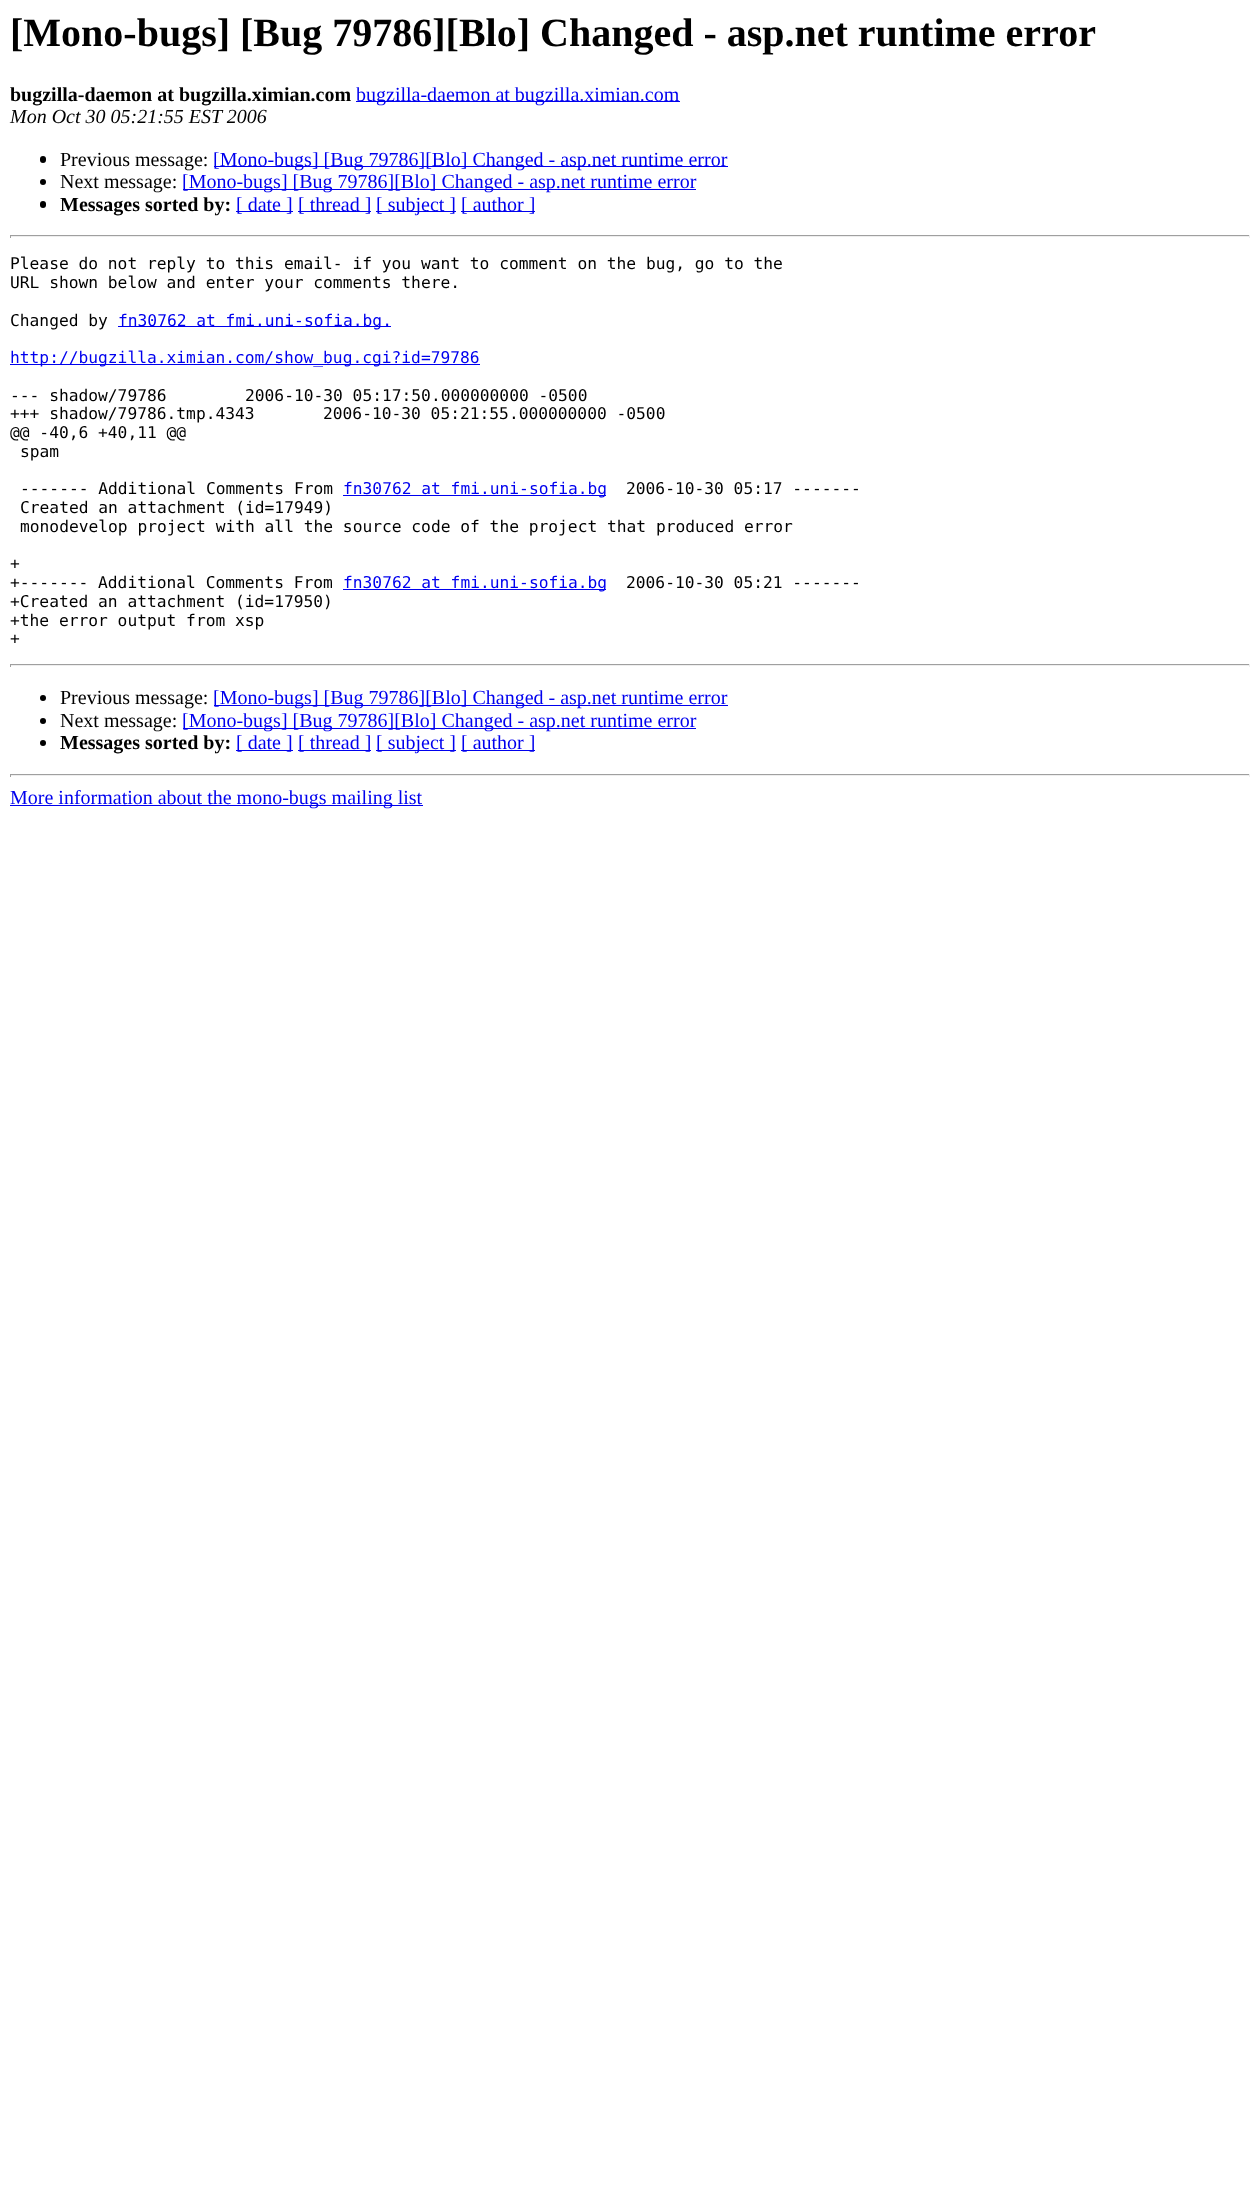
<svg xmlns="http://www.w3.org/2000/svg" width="1259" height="2191">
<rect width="100%" height="100%" fill="#fff"/>
<text x="10" y="46" style="font-family:Liberation Serif;font-size:40px;font-weight:bold;fill:#000">[Mono-bugs] [Bug 79786][Blo] Changed - asp.net runtime error</text>
<text x="10" y="101" style="font-family:Liberation Serif;font-size:20px;font-weight:bold;fill:#000">bugzilla-daemon at bugzilla.ximian.com</text>
<rect x="356" y="101" width="324" height="1" fill="#00e"/>
<text x="356" y="101" style="font-family:Liberation Serif;font-size:20px;fill:#00e">bugzilla-daemon at bugzilla.ximian.com</text>
<text x="10" y="123" style="font-family:Liberation Serif;font-size:20px;font-style:italic;fill:#000">Mon Oct 30 05:21:55 EST 2006</text>
<rect x="40" y="156" width="6" height="7" rx="3" fill="#000"/>
<text x="60" y="166" style="font-family:Liberation Serif;font-size:20px;fill:#000">Previous message:</text>
<rect x="214" y="166" width="514" height="1" fill="#00e"/>
<text x="213" y="166" style="font-family:Liberation Serif;font-size:20px;fill:#00e">[Mono-bugs] [Bug 79786][Blo] Changed - asp.net runtime error</text>
<circle cx="43" cy="182" r="3" fill="#000"/>
<text x="60" y="188" style="font-family:Liberation Serif;font-size:20px;fill:#000">Next message:</text>
<rect x="183" y="189" width="513" height="1" fill="#00e"/>
<text x="182" y="188" style="font-family:Liberation Serif;font-size:20px;fill:#00e">[Mono-bugs] [Bug 79786][Blo] Changed - asp.net runtime error</text>
<rect x="40" y="201" width="6" height="7" rx="3" fill="#000"/>
<text x="60" y="211" style="font-family:Liberation Serif;font-size:20px;font-weight:bold;fill:#000">Messages sorted by:</text>
<rect x="236" y="211" width="57" height="1" fill="#00e"/>
<text x="236" y="211" style="font-family:Liberation Serif;font-size:20px;fill:#00e">[ date ]</text>
<rect x="298" y="211" width="73" height="1" fill="#00e"/>
<text x="298" y="211" style="font-family:Liberation Serif;font-size:20px;fill:#00e">[ thread ]</text>
<rect x="376" y="211" width="80" height="1" fill="#00e"/>
<text x="376" y="211" style="font-family:Liberation Serif;font-size:20px;fill:#00e">[ subject ]</text>
<rect x="461" y="211" width="74" height="1" fill="#00e"/>
<text x="461" y="211" style="font-family:Liberation Serif;font-size:20px;fill:#00e">[ author ]</text>
<rect x="10" y="235" width="1240" height="1" fill="#9f9f9f"/>
<rect x="1249" y="235" width="1" height="3" fill="#eee"/>
<rect x="10" y="236" width="1240" height="1" fill="#eee"/>
<rect x="10" y="235" width="1" height="3" fill="#9f9f9f"/>
<text x="10" y="269" style="font-family:DejaVu Sans Mono;font-size:16.25px;fill:#000">Please do not reply to this email- if you want to comment on the bug, go to the</text>
<text x="10" y="288" style="font-family:DejaVu Sans Mono;font-size:16.25px;fill:#000">URL shown below and enter your comments there.</text>
<text x="10" y="326" style="font-family:DejaVu Sans Mono;font-size:16.25px;fill:#000">Changed by</text>
<rect x="118" y="326" width="273" height="1" fill="#00e"/>
<text x="118" y="326" style="font-family:DejaVu Sans Mono;font-size:16.25px;fill:#00e">fn30762 at fmi.uni-sofia.bg.</text>
<rect x="10" y="364" width="470" height="1" fill="#00e"/>
<text x="10" y="363" style="font-family:DejaVu Sans Mono;font-size:16.25px;fill:#00e">http://bugzilla.ximian.com/show_bug.cgi?id=79786</text>
<text x="10" y="401" style="font-family:DejaVu Sans Mono;font-size:16.25px;fill:#000">--- shadow/79786</text>
<text x="245" y="401" style="font-family:DejaVu Sans Mono;font-size:16.25px;fill:#000">2006-10-30 05:17:50.000000000 -0500</text>
<text x="10" y="419" style="font-family:DejaVu Sans Mono;font-size:16.25px;fill:#000">+++ shadow/79786.tmp.4343</text>
<text x="323" y="419" style="font-family:DejaVu Sans Mono;font-size:16.25px;fill:#000">2006-10-30 05:21:55.000000000 -0500</text>
<text x="10" y="438" style="font-family:DejaVu Sans Mono;font-size:16.25px;fill:#000">@@ -40,6 +40,11 @@</text>
<text x="20" y="457" style="font-family:DejaVu Sans Mono;font-size:16.25px;fill:#000">spam</text>
<text x="20" y="494" style="font-family:DejaVu Sans Mono;font-size:16.25px;fill:#000">------- Additional Comments From</text>
<rect x="343" y="495" width="263" height="1" fill="#00e"/>
<text x="343" y="494" style="font-family:DejaVu Sans Mono;font-size:16.25px;fill:#00e">fn30762 at fmi.uni-sofia.bg</text>
<text x="626" y="494" style="font-family:DejaVu Sans Mono;font-size:16.25px;fill:#000">2006-10-30 05:17 -------</text>
<text x="20" y="513" style="font-family:DejaVu Sans Mono;font-size:16.25px;fill:#000">Created an attachment (id=17949)</text>
<text x="20" y="532" style="font-family:DejaVu Sans Mono;font-size:16.25px;fill:#000">monodevelop project with all the source code of the project that produced error</text>
<text x="10" y="569" style="font-family:DejaVu Sans Mono;font-size:16.25px;fill:#000">+</text>
<text x="10" y="588" style="font-family:DejaVu Sans Mono;font-size:16.25px;fill:#000">+------- Additional Comments From</text>
<rect x="343" y="589" width="263" height="1" fill="#00e"/>
<text x="343" y="588" style="font-family:DejaVu Sans Mono;font-size:16.25px;fill:#00e">fn30762 at fmi.uni-sofia.bg</text>
<text x="626" y="588" style="font-family:DejaVu Sans Mono;font-size:16.25px;fill:#000">2006-10-30 05:21 -------</text>
<text x="10" y="607" style="font-family:DejaVu Sans Mono;font-size:16.25px;fill:#000">+Created an attachment (id=17950)</text>
<text x="10" y="626" style="font-family:DejaVu Sans Mono;font-size:16.25px;fill:#000">+the error output from xsp</text>
<text x="10" y="644" style="font-family:DejaVu Sans Mono;font-size:16.25px;fill:#000">+</text>
<rect x="10" y="664" width="1240" height="1" fill="#9f9f9f"/>
<rect x="1249" y="664" width="1" height="3" fill="#eee"/>
<rect x="10" y="665" width="1240" height="1" fill="#eee"/>
<rect x="10" y="664" width="1" height="3" fill="#9f9f9f"/>
<circle cx="43" cy="698" r="3" fill="#000"/>
<text x="60" y="704" style="font-family:Liberation Serif;font-size:20px;fill:#000">Previous message:</text>
<rect x="214" y="705" width="514" height="1" fill="#00e"/>
<text x="213" y="704" style="font-family:Liberation Serif;font-size:20px;fill:#00e">[Mono-bugs] [Bug 79786][Blo] Changed - asp.net runtime error</text>
<circle cx="43" cy="721" r="3" fill="#000"/>
<text x="60" y="727" style="font-family:Liberation Serif;font-size:20px;fill:#000">Next message:</text>
<rect x="183" y="728" width="513" height="1" fill="#00e"/>
<text x="182" y="727" style="font-family:Liberation Serif;font-size:20px;fill:#00e">[Mono-bugs] [Bug 79786][Blo] Changed - asp.net runtime error</text>
<circle cx="43" cy="743" r="3" fill="#000"/>
<text x="60" y="749" style="font-family:Liberation Serif;font-size:20px;font-weight:bold;fill:#000">Messages sorted by:</text>
<rect x="236" y="750" width="57" height="1" fill="#00e"/>
<text x="236" y="749" style="font-family:Liberation Serif;font-size:20px;fill:#00e">[ date ]</text>
<rect x="298" y="750" width="73" height="1" fill="#00e"/>
<text x="298" y="749" style="font-family:Liberation Serif;font-size:20px;fill:#00e">[ thread ]</text>
<rect x="376" y="750" width="80" height="1" fill="#00e"/>
<text x="376" y="749" style="font-family:Liberation Serif;font-size:20px;fill:#00e">[ subject ]</text>
<rect x="461" y="750" width="74" height="1" fill="#00e"/>
<text x="461" y="749" style="font-family:Liberation Serif;font-size:20px;fill:#00e">[ author ]</text>
<rect x="10" y="774" width="1240" height="1" fill="#9f9f9f"/>
<rect x="1249" y="774" width="1" height="3" fill="#eee"/>
<rect x="10" y="775" width="1240" height="1" fill="#eee"/>
<rect x="10" y="774" width="1" height="3" fill="#9f9f9f"/>
<rect x="10" y="805" width="413" height="1" fill="#00e"/>
<text x="10" y="804" style="font-family:Liberation Serif;font-size:20px;fill:#00e">More information about the mono-bugs mailing list</text>
</svg>
